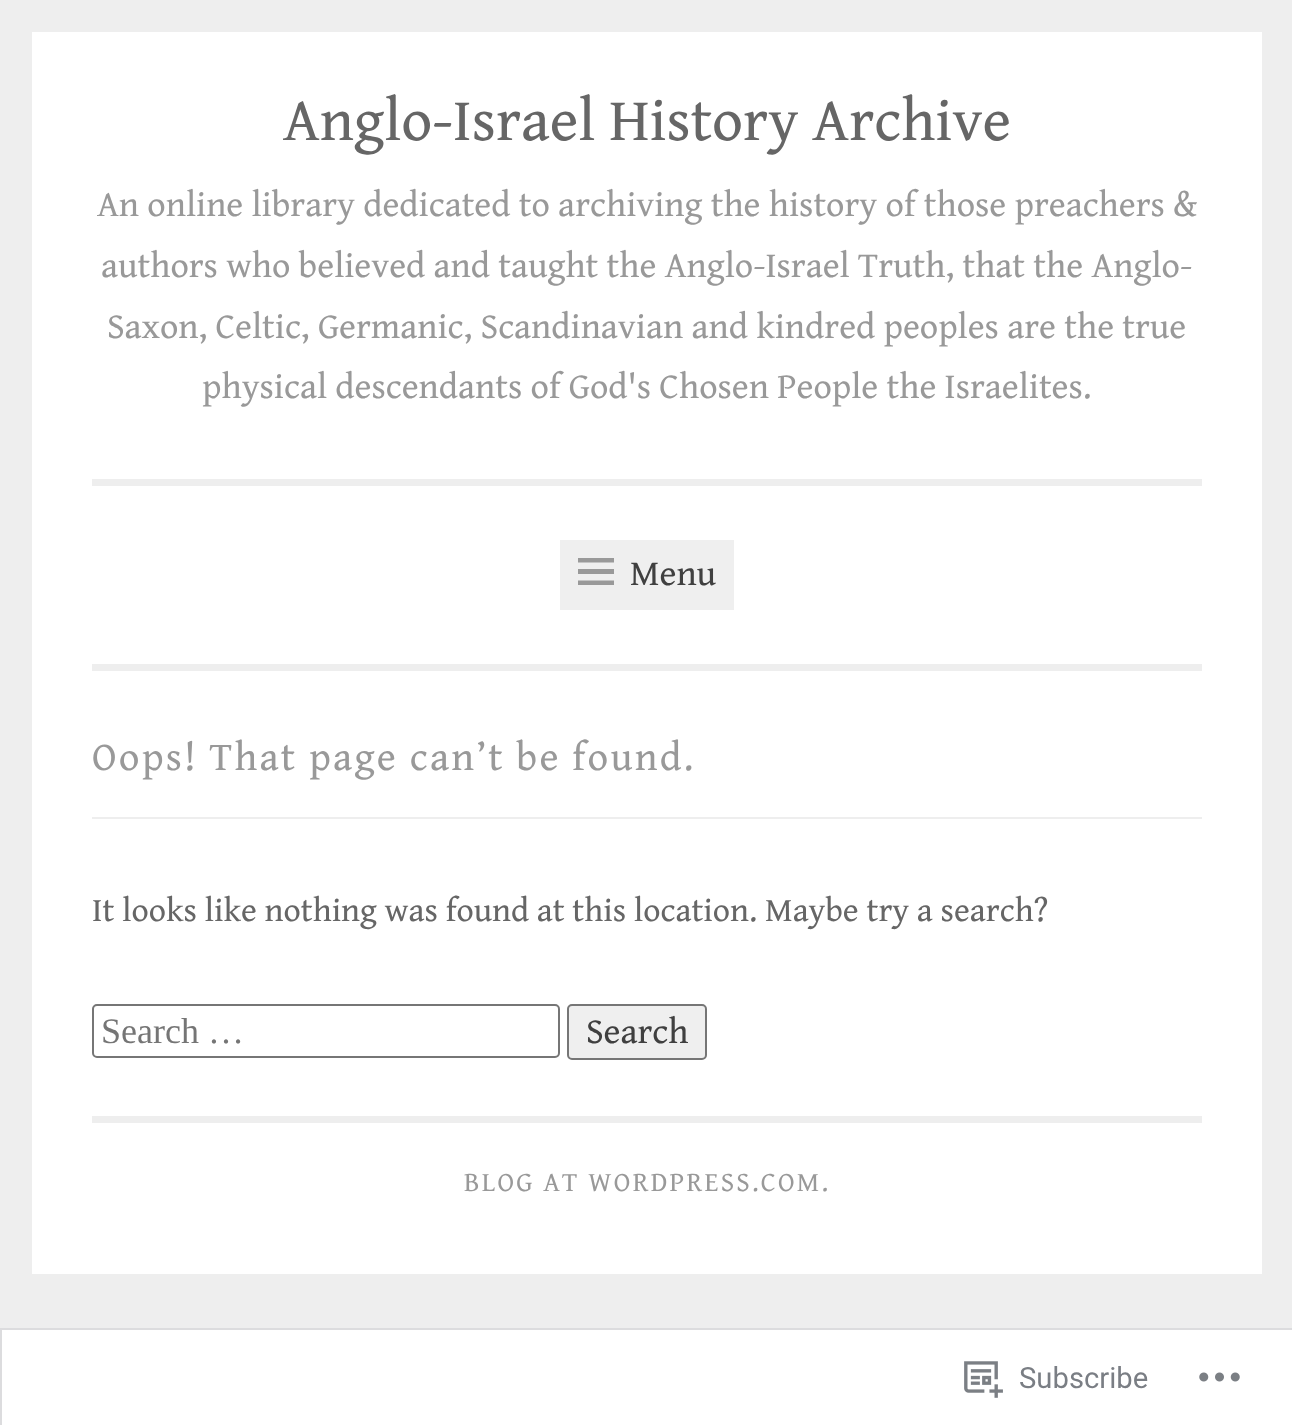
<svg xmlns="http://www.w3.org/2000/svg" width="1292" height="1425">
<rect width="100%" height="100%" fill="#eee"/>
<rect x="32" y="32" width="1230" height="1242" fill="#fff"/>
<rect x="92" y="664" width="1110" height="7" fill="#eee"/>
<text x="283" y="140" style="font-family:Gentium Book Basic;font-size:60.75px;fill:#666">Anglo-Israel History Archive</text>
<text x="97" y="216" style="font-family:Gentium Book Basic;font-size:36px;fill:#999">An online library dedicated to archiving the history of those preachers &amp;</text>
<text x="101" y="277" style="font-family:Gentium Book Basic;font-size:36px;fill:#999">authors who believed and taught the Anglo-Israel Truth, that the Anglo-</text>
<text x="107" y="338" style="font-family:Gentium Book Basic;font-size:36px;fill:#999">Saxon, Celtic, Germanic, Scandinavian and kindred peoples are the true</text>
<text x="202" y="398" style="font-family:Gentium Book Basic;font-size:36px;fill:#999">physical descendants of God's Chosen People the Israelites.</text>
<rect x="92" y="479" width="1110" height="7" fill="#eee"/>
<rect x="560" y="540" width="174" height="70" fill="#efefef"/>
<path d="M578 585h36v-4.5h-36zm0-27v4.5h36v-4.5zm0 16h36v-5h-36z" fill="#999"/>
<text x="630" y="585" style="font-family:Gentium Book Basic;font-size:36px;fill:#404040">Menu</text>
<rect x="92" y="817" width="1110" height="2" fill="#eee"/>
<text x="92" y="770" style="font-family:Gentium Book Basic;font-size:40.5px;letter-spacing:2.25px;fill:#999">Oops! That page can’t be found.</text>
<text x="92" y="921" style="font-family:Gentium Book Basic;font-size:33.75px;fill:#666">It looks like nothing was found at this location. Maybe try a search?</text>
<rect x="93" y="1005" width="466" height="52" rx="4" fill="none" stroke="#767676" stroke-width="2"/>
<text x="101" y="1043" style="font-family:Liberation Serif;font-size:36px;fill:#757575">Search …</text>
<rect x="568" y="1005" width="138" height="54" rx="4" fill="#efefef" stroke="#767676" stroke-width="2"/>
<text x="586" y="1043" style="font-family:Gentium Book Basic;font-size:36px;fill:#404040">Search</text>
<rect x="92" y="1116" width="1110" height="7" fill="#eee"/>
<text x="464" y="1191" style="font-family:Gentium Book Basic;font-size:27.4px;letter-spacing:2.25px;fill:#999">BLOG AT WORDPRESS.COM.</text>
<rect x="1" y="1329" width="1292" height="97" fill="#fff" stroke="#dcdcde" stroke-width="2"/>
<image x="964" y="1361" width="39" height="37" href="media/1.png"/>
<text x="1019" y="1388" style="font-family:Roboto;font-size:29.25px;fill:#7a7e84">Subscribe</text>
<image x="1199" y="1372" width="41" height="10" href="media/2.png"/>
</svg>
